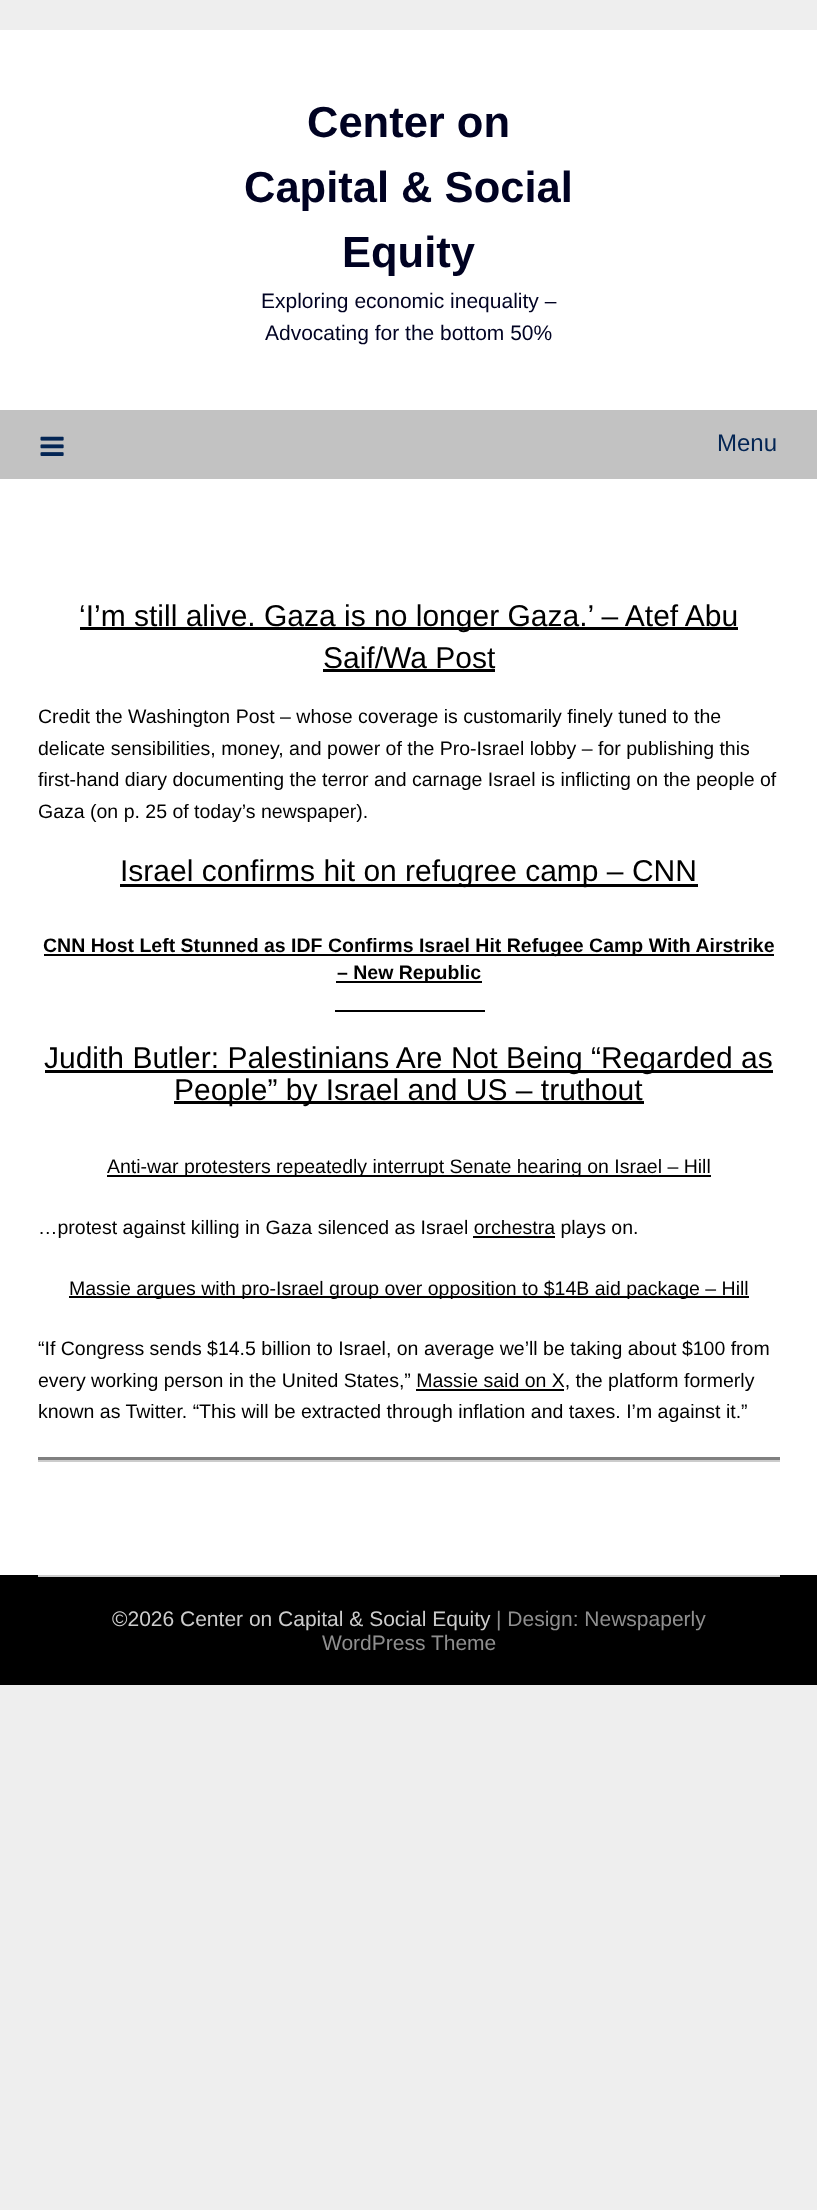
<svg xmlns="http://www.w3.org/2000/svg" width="817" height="2210">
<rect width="100%" height="100%" fill="#eee"/>
<rect y="30" width="817" height="380" fill="#fff"/>
<text x="307" y="137" style="font-family:Liberation Sans;font-size:43.5px;font-weight:bold;fill:#000222">Center on</text>
<text x="244" y="202" style="font-family:Liberation Sans;font-size:43.5px;font-weight:bold;fill:#000222">Capital &amp; Social</text>
<text x="342" y="267" style="font-family:Liberation Sans;font-size:43.5px;font-weight:bold;fill:#000222">Equity</text>
<text x="261" y="308" style="font-family:Liberation Sans;font-size:21px;fill:#000222">Exploring economic inequality –</text>
<text x="265" y="340" style="font-family:Liberation Sans;font-size:21px;fill:#000222">Advocating for the bottom 50%</text>
<rect y="410" width="817" height="69" fill="#c2c2c2"/>
<image x="40" y="436" width="24" height="20" href="media/1.png"/>
<text x="717" y="451" style="font-family:Liberation Sans;font-size:24px;fill:#032554">Menu</text>
<rect y="479" width="817" height="1096" fill="#fff"/>
<rect x="80" y="627" width="658" height="3" fill="#000"/>
<text x="79" y="626" style="font-family:Liberation Sans;font-size:30px;fill:#000">‘I’m still alive. Gaza is no longer Gaza.’ – Atef Abu</text>
<text x="323" y="668" style="font-family:Liberation Sans;font-size:30px;fill:#000">Saif/Wa Post</text>
<rect x="323" y="669" width="172" height="3" fill="#000"/>
<text x="38" y="723" style="font-family:Liberation Sans;font-size:19.5px;fill:#000">Credit the Washington Post – whose coverage is customarily finely tuned to the</text>
<text x="38" y="755" style="font-family:Liberation Sans;font-size:19.5px;fill:#000">delicate sensibilities, money, and power of the Pro-Israel lobby – for publishing this</text>
<text x="38" y="786" style="font-family:Liberation Sans;font-size:19.5px;fill:#000">first-hand diary documenting the terror and carnage Israel is inflicting on the people of</text>
<text x="38" y="818" style="font-family:Liberation Sans;font-size:19.5px;fill:#000">Gaza (on p. 25 of today’s newspaper).</text>
<rect x="120" y="884" width="578" height="3" fill="#000"/>
<text x="120" y="881" style="font-family:Liberation Sans;font-size:30px;fill:#000">Israel confirms hit on refugree camp – CNN</text>
<rect x="44" y="954" width="730" height="2" fill="#000"/>
<text x="43" y="952" style="font-family:Liberation Sans;font-size:19.5px;font-weight:bold;fill:#000">CNN Host Left Stunned as IDF Confirms Israel Hit Refugee Camp With Airstrike</text>
<rect x="336" y="981" width="146" height="2" fill="#000"/>
<text x="337" y="979" style="font-family:Liberation Sans;font-size:19.5px;font-weight:bold;fill:#000">– New Republic</text>
<rect x="335" y="1010" width="150" height="2" fill="#000"/>
<rect x="45" y="1070" width="728" height="3" fill="#000"/>
<text x="44" y="1068" style="font-family:Liberation Sans;font-size:30px;fill:#000">Judith Butler: Palestinians Are Not Being “Regarded as</text>
<rect x="174" y="1101" width="470" height="3" fill="#000"/>
<text x="174" y="1100" style="font-family:Liberation Sans;font-size:30px;fill:#000">People” by Israel and US – truthout</text>
<rect x="107" y="1175" width="604" height="2" fill="#000"/>
<text x="107" y="1173" style="font-family:Liberation Sans;font-size:19.5px;fill:#000">Anti-war protesters repeatedly interrupt Senate hearing on Israel – Hill</text>
<text x="38" y="1234" style="font-family:Liberation Sans;font-size:19.5px;fill:#000">…protest against killing in Gaza silenced as Israel orchestra plays on.</text>
<rect x="473" y="1236" width="82" height="2" fill="#000"/>
<rect x="69" y="1296" width="680" height="2" fill="#000"/>
<text x="69" y="1295" style="font-family:Liberation Sans;font-size:19.5px;fill:#000">Massie argues with pro-Israel group over opposition to $14B aid package – Hill</text>
<text x="38" y="1355" style="font-family:Liberation Sans;font-size:19.5px;fill:#000">“If Congress sends $14.5 billion to Israel, on average we’ll be taking about $100 from</text>
<text x="38" y="1387" style="font-family:Liberation Sans;font-size:19.5px;fill:#000">every working person in the United States,” Massie said on X, the platform formerly</text>
<rect x="416" y="1389" width="148" height="2" fill="#000"/>
<text x="38" y="1418" style="font-family:Liberation Sans;font-size:19.5px;fill:#000">known as Twitter. “This will be extracted through inflation and taxes. I’m against it.”</text>
<rect x="38" y="1460" width="742" height="2" fill="#ccc"/>
<rect x="38" y="1457" width="742" height="3" fill="#808080"/>
<rect y="1575" width="817" height="110" fill="#000"/>
<rect x="38" y="1575" width="742" height="2" fill="#ccc"/>
<text x="112" y="1626" style="font-family:Liberation Sans;font-size:21px;fill:#ccc">©2026 Center on Capital &amp; Social Equity</text>
<text x="496" y="1626" style="font-family:Liberation Sans;font-size:21px;fill:#8f8f8f">| Design: Newspaperly</text>
<text x="322" y="1650" style="font-family:Liberation Sans;font-size:21px;fill:#8f8f8f">WordPress Theme</text>
</svg>
